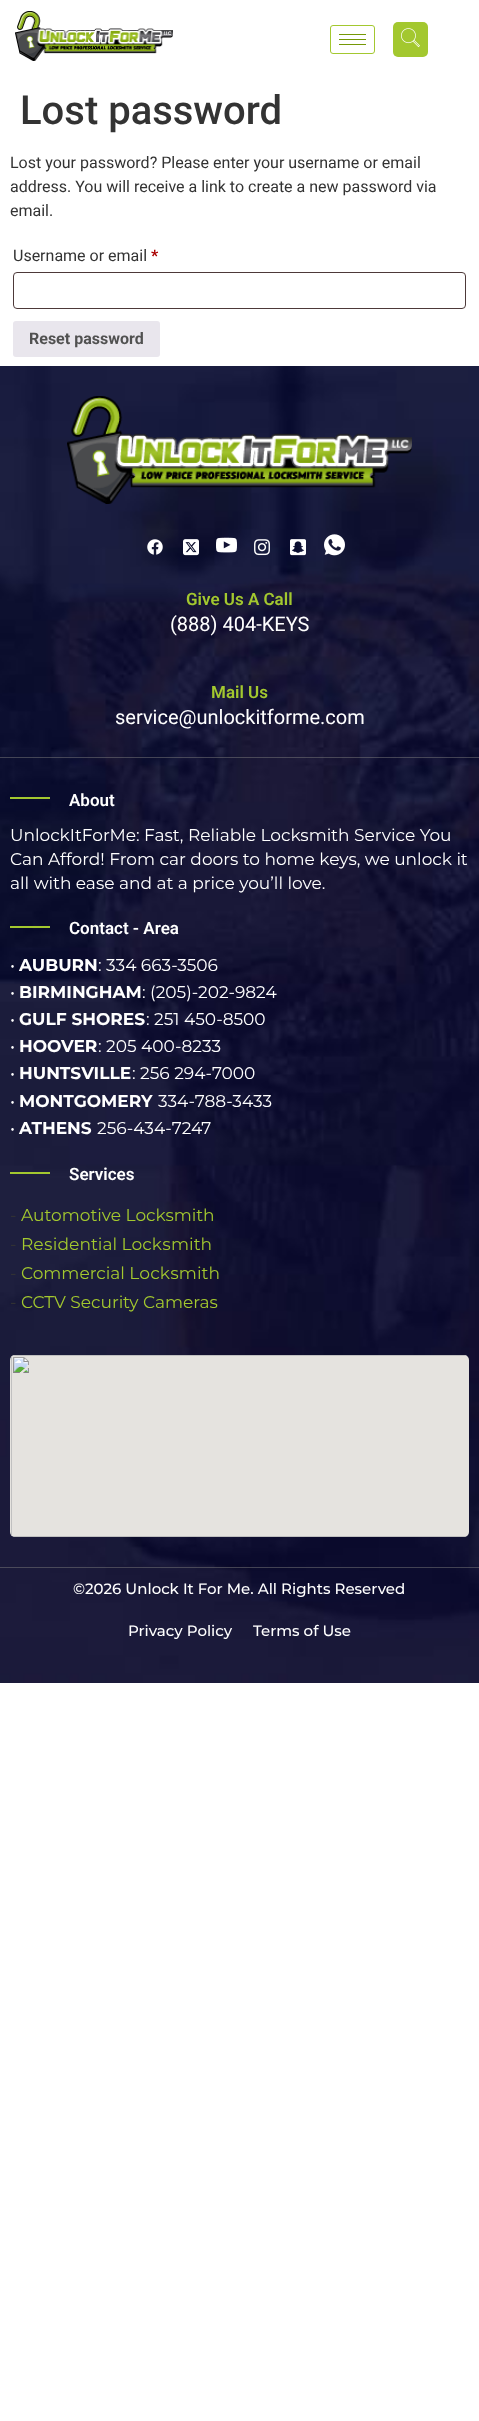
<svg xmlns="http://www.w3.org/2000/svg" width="479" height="2421">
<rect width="100%" height="100%" fill="#fff"/>
<image x="15" y="11" width="158" height="50" href="media/1.png"/>
<rect x="330.5" y="25.5" width="44" height="28" rx="2.5" fill="none" stroke="#a3c82f"/>
<rect x="339" y="34" width="27" height="1" fill="#759806"/>
<rect x="339" y="39" width="27" height="1" fill="#759806"/>
<rect x="339" y="44" width="27" height="1" fill="#759806"/>
<rect x="393" y="22" width="35" height="35" rx="5" fill="#a3c82f"/>
<image x="401" y="28" width="19" height="20" href="media/2.png"/>
<text x="20" y="124" style="font-family:Roboto;font-size:40px;font-weight:500;fill:#333">Lost password</text>
<text x="10" y="168" style="font-family:Roboto;font-size:16px;fill:#333">Lost your password? Please enter your username or email</text>
<text x="10" y="192" style="font-family:Roboto;font-size:16px;fill:#333">address. You will receive a link to create a new password via</text>
<text x="10" y="216" style="font-family:Roboto;font-size:16px;fill:#333">email.</text>
<text x="13" y="261" style="font-family:Roboto;font-size:16px;fill:#333">Username or email</text>
<text x="151" y="261" style="font-family:Roboto;font-size:16px;font-weight:bold;fill:#a00">*</text>
<rect x="13.5" y="272.5" width="452" height="36" rx="3.5" fill="none" stroke="#4d3939"/>
<rect x="13" y="321" width="147" height="36" rx="3" fill="#e9e6ed"/>
<text x="29" y="344" style="font-family:Roboto;font-size:16px;font-weight:bold;fill:#515151">Reset password</text>
<image x="0" y="366" width="479" height="1317" href="media/3.png"/>
<rect y="757" width="479" height="1" fill="#7a7a7a82"/>
<image x="67" y="396" width="345" height="108" href="media/4.png"/>
<image x="147" y="539" width="16" height="16" href="media/5.png"/>
<image x="183" y="539" width="16" height="17" href="media/6.png"/>
<image x="216" y="537" width="21" height="16" href="media/7.png"/>
<image x="254" y="539" width="16" height="17" href="media/8.png"/>
<image x="290" y="539" width="16" height="17" href="media/9.png"/>
<image x="324" y="534" width="21" height="22" href="media/10.png"/>
<text x="186" y="605" style="font-family:Roboto;font-size:17px;font-weight:600;fill:#a3c82f">Give Us A Call</text>
<text x="170" y="631" style="font-family:Roboto;font-size:20px;fill:#fff">(888) 404-KEYS</text>
<text x="211" y="698" style="font-family:Roboto;font-size:17px;font-weight:600;fill:#a3c82f">Mail Us</text>
<text x="115" y="724" style="font-family:Roboto;font-size:20px;fill:#fff">service@unlockitforme.com</text>
<rect x="10" y="797" width="40" height="2" fill="#a3c82f"/>
<text x="69" y="806" style="font-family:Roboto;font-size:17px;font-weight:600;fill:#fff">About</text>
<text x="10" y="841" style="font-family:Montserrat;font-size:17px;fill:#fff">UnlockItForMe: Fast, Reliable Locksmith Service You</text>
<text x="10" y="865" style="font-family:Montserrat;font-size:17px;fill:#fff">Can Afford! From car doors to home keys, we unlock it</text>
<text x="10" y="889" style="font-family:Montserrat;font-size:17px;fill:#fff">all with ease and at a price you’ll love.</text>
<rect x="10" y="926" width="40" height="2" fill="#a3c82f"/>
<text x="69" y="934" style="font-family:Roboto;font-size:17px;font-weight:600;fill:#fff">Contact - Area</text>
<text x="10" y="971" style="font-family:Montserrat;font-size:17px;fill:#fff">•</text>
<text x="19" y="971" style="font-family:Montserrat;font-size:17px;font-weight:bold;fill:#fff">AUBURN</text>
<text x="98" y="971" style="font-family:Montserrat;font-size:17px;fill:#fff">: 334 663-3506</text>
<text x="10" y="998" style="font-family:Montserrat;font-size:17px;fill:#fff">•</text>
<text x="19" y="998" style="font-family:Montserrat;font-size:17px;font-weight:bold;fill:#fff">BIRMINGHAM</text>
<text x="142" y="998" style="font-family:Montserrat;font-size:17px;fill:#fff">: (205)-202-9824</text>
<text x="10" y="1025" style="font-family:Montserrat;font-size:17px;fill:#fff">•</text>
<text x="19" y="1025" style="font-family:Montserrat;font-size:17px;font-weight:bold;fill:#fff">GULF SHORES</text>
<text x="146" y="1025" style="font-family:Montserrat;font-size:17px;fill:#fff">: 251 450-8500</text>
<text x="10" y="1052" style="font-family:Montserrat;font-size:17px;fill:#fff">•</text>
<text x="19" y="1052" style="font-family:Montserrat;font-size:17px;font-weight:bold;fill:#fff">HOOVER</text>
<text x="98" y="1052" style="font-family:Montserrat;font-size:17px;fill:#fff">: 205 400-8233</text>
<text x="10" y="1079" style="font-family:Montserrat;font-size:17px;fill:#fff">•</text>
<text x="19" y="1079" style="font-family:Montserrat;font-size:17px;font-weight:bold;fill:#fff">HUNTSVILLE</text>
<text x="132" y="1079" style="font-family:Montserrat;font-size:17px;fill:#fff">: 256 294-7000</text>
<text x="10" y="1107" style="font-family:Montserrat;font-size:17px;fill:#fff">•</text>
<text x="19" y="1107" style="font-family:Montserrat;font-size:17px;font-weight:bold;fill:#fff">MONTGOMERY</text>
<text x="158" y="1107" style="font-family:Montserrat;font-size:17px;fill:#fff">334-788-3433</text>
<text x="10" y="1134" style="font-family:Montserrat;font-size:17px;fill:#fff">•</text>
<text x="19" y="1134" style="font-family:Montserrat;font-size:17px;font-weight:bold;fill:#fff">ATHENS</text>
<text x="97" y="1134" style="font-family:Montserrat;font-size:17px;fill:#fff">256-434-7247</text>
<rect x="10" y="1172" width="40" height="2" fill="#a3c82f"/>
<text x="69" y="1180" style="font-family:Roboto;font-size:17px;font-weight:600;fill:#fff">Services</text>
<text x="10" y="1221" style="font-family:Montserrat;font-size:17px;fill:#333">-</text>
<text x="21" y="1221" style="font-family:Montserrat;font-size:17px;fill:#a3c82f">Automotive Locksmith</text>
<text x="10" y="1250" style="font-family:Montserrat;font-size:17px;fill:#333">-</text>
<text x="21" y="1250" style="font-family:Montserrat;font-size:17px;fill:#a3c82f">Rеѕіdеntіаl Lосkѕmіth</text>
<text x="10" y="1279" style="font-family:Montserrat;font-size:17px;fill:#333">-</text>
<text x="21" y="1279" style="font-family:Montserrat;font-size:17px;fill:#a3c82f">Commercial Lосkѕmіth</text>
<text x="10" y="1308" style="font-family:Montserrat;font-size:17px;fill:#333">-</text>
<text x="21" y="1308" style="font-family:Montserrat;font-size:17px;fill:#a3c82f">CCTV Security Cameras</text>
<image x="10" y="1355" width="459" height="182" href="media/11.png"/>
<rect y="1567" width="479" height="1" fill="#7a7a7a82"/>
<text x="73" y="1594" style="font-family:Montserrat;font-size:15px;font-weight:500;fill:#fff">©2026 Unlock It For Me. All Rights Reserved</text>
<text x="128" y="1636" style="font-family:Montserrat;font-size:15px;font-weight:500;fill:#fff">Privacy Policy</text>
<text x="253" y="1636" style="font-family:Montserrat;font-size:15px;font-weight:500;fill:#fff">Terms of Use</text>
</svg>
